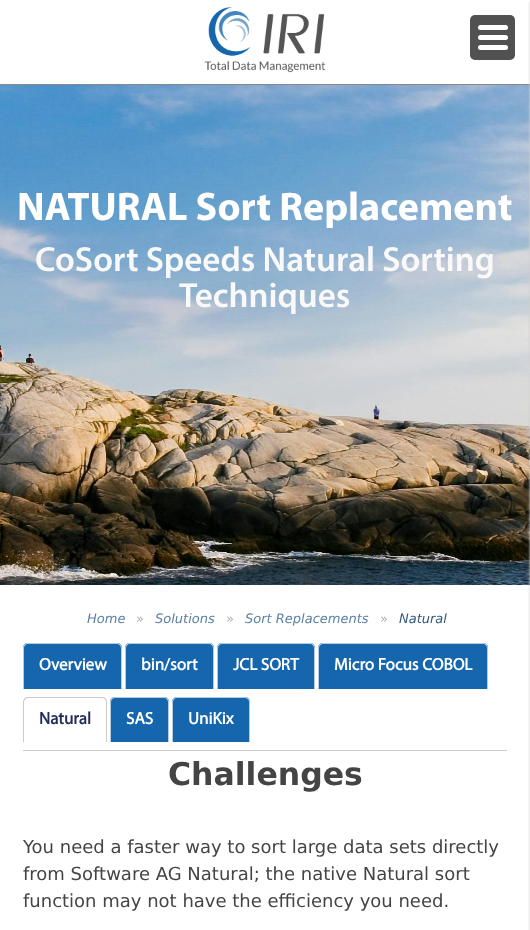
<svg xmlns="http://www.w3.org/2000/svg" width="530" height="930">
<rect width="100%" height="100%" fill="#fff"/>
<rect y="84" width="530" height="1" fill="#888"/>
<image x="0" y="85" width="530" height="500" href="media/2.png"/>
<rect x="530" y="1" width="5" height="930" fill="#ccc" filter="blur(1.5px)"/>
<rect x="470" y="15" width="45" height="45" rx="5" fill="#515151"/>
<rect x="478" y="25" width="30" height="5" rx="2.5" fill="#fff"/>
<rect x="478" y="35" width="30" height="5" rx="2.5" fill="#fff"/>
<rect x="478" y="45" width="30" height="5" rx="2.5" fill="#fff"/>
<image x="204" y="7" width="122" height="66" href="media/1.png"/>
<text x="17" y="220" style="font-family:Myriad;font-size:40px;font-weight:bold;fill:#fff">NATURAL Sort Replacement</text>
<text x="35" y="271" style="font-family:Myriad;font-size:35px;font-weight:600;fill:#f9f9f9">CoSort Speeds Natural Sorting</text>
<text x="179" y="307" style="font-family:Myriad;font-size:35px;font-weight:600;fill:#f9f9f9">Techniques</text>
<text x="87" y="623" style="font-family:DejaVu Sans;font-size:13px;font-style:italic;fill:#5d80a0">Home</text>
<text x="136" y="623" style="font-family:DejaVu Sans;font-size:13px;fill:#aaa">»</text>
<text x="155" y="623" style="font-family:DejaVu Sans;font-size:13px;font-style:italic;fill:#5d80a0">Solutions</text>
<text x="226" y="623" style="font-family:DejaVu Sans;font-size:13px;fill:#aaa">»</text>
<text x="245" y="623" style="font-family:DejaVu Sans;font-size:13px;font-style:italic;fill:#5d80a0">Sort Replacements</text>
<text x="380" y="623" style="font-family:DejaVu Sans;font-size:13px;fill:#aaa">»</text>
<text x="399" y="623" style="font-family:DejaVu Sans;font-size:13px;font-style:italic;fill:#32587a">Natural</text>
<path d="M28 643h89c3 0 5 2 5 5v41h-99v-41c0-3 2-5 5-5z" fill="#1666ae"/>
<path d="M28 643h89c3 0 5 2 5 5v41h-99v-41c0-3 2-5 5-5zm0 1h89c2 0 4 2 4 4v41h-97v-41c0-2 2-4 4-4z" fill="#b4cbe0" fill-rule="evenodd"/>
<text x="39" y="670" style="font-family:'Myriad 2';font-size:17px;font-weight:bold;fill:#fff">Overview</text>
<path d="M130 643h79c3 0 5 2 5 5v41h-89v-41c0-3 2-5 5-5z" fill="#1666ae"/>
<path d="M130 643h79c3 0 5 2 5 5v41h-89v-41c0-3 2-5 5-5zm0 1h79c2 0 4 2 4 4v41h-87v-41c0-2 2-4 4-4z" fill="#b4cbe0" fill-rule="evenodd"/>
<text x="141" y="670" style="font-family:'Myriad 2';font-size:17px;font-weight:bold;fill:#fff">bin/sort</text>
<path d="M222 643h88c3 0 5 2 5 5v41h-98v-41c0-3 2-5 5-5z" fill="#1666ae"/>
<path d="M222 643h88c3 0 5 2 5 5v41h-98v-41c0-3 2-5 5-5zm0 1h88c2 0 4 2 4 4v41h-96v-41c0-2 2-4 4-4z" fill="#b4cbe0" fill-rule="evenodd"/>
<text x="233" y="670" style="font-family:'Myriad 2';font-size:17px;font-weight:bold;fill:#fff">JCL SORT</text>
<path d="M323 643h160c3 0 5 2 5 5v41h-170v-41c0-3 2-5 5-5z" fill="#1666ae"/>
<path d="M323 643h160c3 0 5 2 5 5v41h-170v-41c0-3 2-5 5-5zm0 1h160c2 0 4 2 4 4v41h-168v-41c0-2 2-4 4-4z" fill="#b4cbe0" fill-rule="evenodd"/>
<text x="334" y="670" style="font-family:'Myriad 2';font-size:17px;font-weight:bold;fill:#fff">Micro Focus COBOL</text>
<path d="M28 697h74c3 0 5 2 5 5v40h-84v-40c0-3 2-5 5-5zm0 1h74c2 0 4 2 4 4v40h-82v-40c0-2 2-4 4-4z" fill="#ccc" fill-rule="evenodd"/>
<text x="39" y="724" style="font-family:'Myriad 2';font-size:17px;font-weight:bold;fill:#232c59">Natural</text>
<path d="M115 697h49c3 0 5 2 5 5v40h-59v-40c0-3 2-5 5-5z" fill="#1666ae"/>
<path d="M115 697h49c3 0 5 2 5 5v40h-59v-40c0-3 2-5 5-5zm0 1h49c2 0 4 2 4 4v40h-57v-40c0-2 2-4 4-4z" fill="#b4cbe0" fill-rule="evenodd"/>
<text x="126" y="724" style="font-family:'Myriad 2';font-size:17px;font-weight:bold;fill:#fff">SAS</text>
<path d="M177 697h68c3 0 5 2 5 5v40h-78v-40c0-3 2-5 5-5z" fill="#1666ae"/>
<path d="M177 697h68c3 0 5 2 5 5v40h-78v-40c0-3 2-5 5-5zm0 1h68c2 0 4 2 4 4v40h-76v-40c0-2 2-4 4-4z" fill="#b4cbe0" fill-rule="evenodd"/>
<text x="188" y="724" style="font-family:'Myriad 2';font-size:17px;font-weight:bold;fill:#fff">UniKix</text>
<rect x="23" y="750" width="484" height="1" fill="#ccc"/>
<text x="168" y="785" style="font-family:DejaVu Sans;font-size:31.5px;font-weight:bold;fill:#444">Challenges</text>
<text x="23" y="853" style="font-family:DejaVu Sans;font-size:18px;fill:#444">You need a faster way to sort large data sets directly</text>
<text x="23" y="880" style="font-family:DejaVu Sans;font-size:18px;fill:#444">from Software AG Natural; the native Natural sort</text>
<text x="23" y="907" style="font-family:DejaVu Sans;font-size:18px;fill:#444">function may not have the efficiency you need.</text>
<rect x="22" y="839" width="1" height="2" fill="#fff"/>
</svg>
